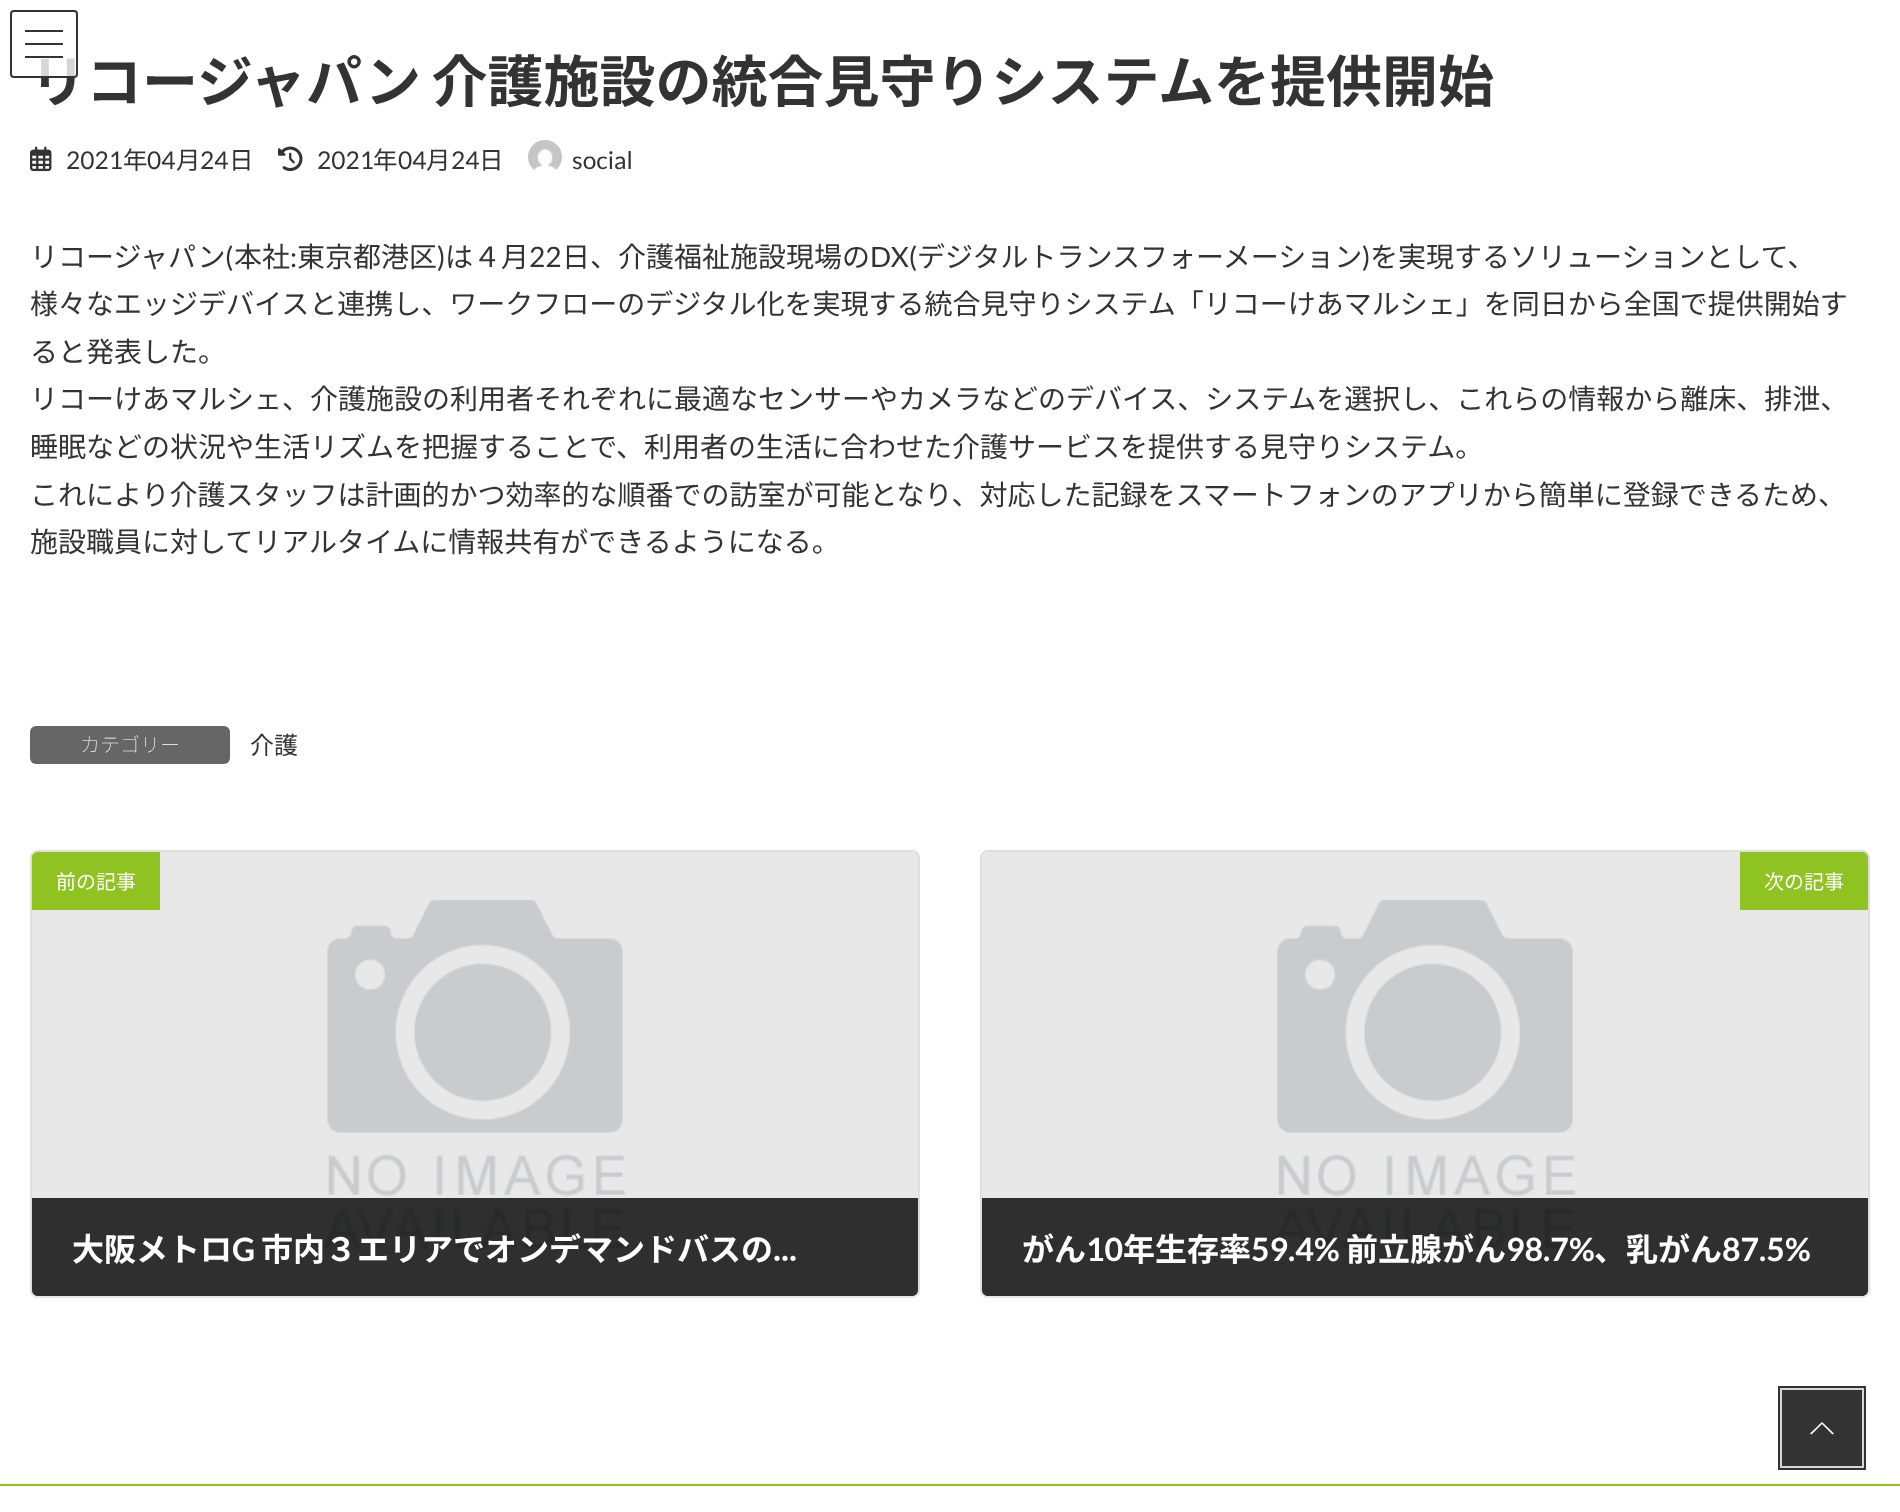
<svg xmlns="http://www.w3.org/2000/svg" width="1900" height="1512">
<defs>
<clipPath id="clip1"><rect x="32" y="852" width="886" height="444" rx="6"/></clipPath>
<clipPath id="clip2"><rect x="982" y="852" width="886" height="444" rx="6"/></clipPath>
</defs>
<rect width="100%" height="100%" fill="#fff"/>
<text x="30" y="102" word-spacing="-2" style="font-family:Noto Sans JP;font-size:56px;font-weight:bold;fill:#333">リコージャパン 介護施設の統合見守りシステムを提供開始</text>
<rect x="10" y="10" width="68" height="68" rx="4" fill="#ffffffcc"/>
<rect x="25" y="30" width="38" height="2" fill="#333"/>
<rect x="25" y="43" width="38" height="2" fill="#333"/>
<rect x="25" y="56" width="38" height="2" fill="#333"/>
<rect x="11" y="11" width="66" height="66" rx="3" fill="none" stroke="#333" stroke-width="2"/>
<image x="30" y="146" width="22" height="26" href="media/1.png"/>
<text x="66" y="169" style="font-family:Lato;font-size:24.5px;fill:#333">2021</text>
<text x="123" y="169" style="font-family:Noto Sans JP;font-size:24.5px;fill:#333">年</text>
<text x="147" y="169" style="font-family:Lato;font-size:24.5px;fill:#333">04</text>
<text x="176" y="169" style="font-family:Noto Sans JP;font-size:24.5px;fill:#333">月</text>
<text x="200" y="169" style="font-family:Lato;font-size:24.5px;fill:#333">24</text>
<text x="229" y="169" style="font-family:Noto Sans JP;font-size:24.5px;fill:#333">日</text>
<image x="278" y="146" width="25" height="26" href="media/2.png"/>
<text x="317" y="169" style="font-family:Lato;font-size:24.5px;fill:#333">2021</text>
<text x="373" y="169" style="font-family:Noto Sans JP;font-size:24.5px;fill:#333">年</text>
<text x="398" y="169" style="font-family:Lato;font-size:24.5px;fill:#333">04</text>
<text x="426" y="169" style="font-family:Noto Sans JP;font-size:24.5px;fill:#333">月</text>
<text x="451" y="169" style="font-family:Lato;font-size:24.5px;fill:#333">24</text>
<text x="479" y="169" style="font-family:Noto Sans JP;font-size:24.5px;fill:#333">日</text>
<image x="528" y="140" width="34" height="30" href="media/3.png"/>
<text x="572" y="169" style="font-family:Lato;font-size:24.5px;fill:#333">social</text>
<text x="30" y="267" style="font-family:Noto Sans JP;font-size:28px;fill:#333">リコージャパン</text>
<text x="225" y="267" style="font-family:Lato;font-size:28px;fill:#333">(</text>
<text x="234" y="267" style="font-family:Noto Sans JP;font-size:28px;fill:#333">本社</text>
<text x="290" y="267" style="font-family:Lato;font-size:28px;fill:#333">:</text>
<text x="297" y="267" style="font-family:Noto Sans JP;font-size:28px;fill:#333">東京都港区</text>
<text x="437" y="267" style="font-family:Lato;font-size:28px;fill:#333">)</text>
<text x="445" y="267" style="font-family:Noto Sans JP;font-size:28px;fill:#333">は４月</text>
<text x="529" y="267" style="font-family:Lato;font-size:28px;fill:#333">22</text>
<text x="562" y="267" style="font-family:Noto Sans JP;font-size:28px;fill:#333">日、介護福祉施設現場の</text>
<text x="870" y="267" style="font-family:Lato;font-size:28px;fill:#333">DX(</text>
<text x="917" y="267" style="font-family:Noto Sans JP;font-size:28px;fill:#333">デジタルトランスフォーメーション</text>
<text x="1362" y="267" style="font-family:Lato;font-size:28px;fill:#333">)</text>
<text x="1370" y="267" style="font-family:Noto Sans JP;font-size:28px;fill:#333">を実現するソリューションとして、</text>
<text x="30" y="314" style="font-family:Noto Sans JP;font-size:28px;fill:#333">様々なエッジデバイスと連携し、ワークフローのデジタル化を実現する統合見守りシステム「リコーけあマルシェ」を同日から全国で提供開始す</text>
<text x="30" y="362" style="font-family:Noto Sans JP;font-size:28px;fill:#333">ると発表した。</text>
<text x="30" y="409" style="font-family:Noto Sans JP;font-size:28px;fill:#333">リコーけあマルシェ、介護施設の利用者それぞれに最適なセンサーやカメラなどのデバイス、システムを選択し、これらの情報から離床、排泄、</text>
<text x="30" y="457" style="font-family:Noto Sans JP;font-size:28px;fill:#333">睡眠などの状況や生活リズムを把握することで、利用者の生活に合わせた介護サービスを提供する見守りシステム。</text>
<text x="30" y="505" style="font-family:Noto Sans JP;font-size:28px;fill:#333">これにより介護スタッフは計画的かつ効率的な順番での訪室が可能となり、対応した記録をスマートフォンのアプリから簡単に登録できるため、</text>
<text x="30" y="552" style="font-family:Noto Sans JP;font-size:28px;fill:#333">施設職員に対してリアルタイムに情報共有ができるようになる。</text>
<rect x="30" y="726" width="200" height="38" rx="6" fill="#666"/>
<text x="80" y="752" style="font-family:Noto Sans JP;font-size:20px;font-weight:100;fill:#fff">カテゴリー</text>
<text x="250" y="754" style="font-family:Noto Sans JP;font-size:24px;fill:#333">介護</text>
<rect x="31" y="851" width="888" height="446" rx="7" fill="none" stroke="#dfdfdf" stroke-width="2"/>
<image x="32" y="852" width="886" height="446" href="media/4.png"/>
<g clip-path="url(#clip1)">
<rect x="32" y="1294" width="886" height="2" fill="#e5e5e5"/>
</g>
<path d="M38 852h122v58h-128v-52c0-3.5 2.5-6 6-6z" fill="#8fc322"/>
<text x="56" y="889" style="font-family:Noto Sans JP;font-size:20px;fill:#fff">前の記事</text>
<path d="M32 1198h886v92c0 3.5-2.5 6-6 6h-874c-3.5 0-6-2.5-6-6z" fill="#000000cc"/>
<text x="72" y="1261" style="font-family:Noto Sans JP;font-size:32px;font-weight:bold;fill:#fff">大阪メトロ</text>
<text x="232" y="1261" style="font-family:Lato;font-size:32px;font-weight:bold;fill:#fff">G</text>
<text x="261" y="1261" style="font-family:Noto Sans JP;font-size:32px;font-weight:bold;fill:#fff">市内３エリアでオンデマンドバスの...</text>
<rect x="981" y="851" width="888" height="446" rx="7" fill="none" stroke="#dfdfdf" stroke-width="2"/>
<image x="982" y="852" width="886" height="446" href="media/4.png"/>
<g clip-path="url(#clip2)">
<rect x="982" y="1294" width="886" height="2" fill="#e5e5e5"/>
</g>
<path d="M1740 852h122c3.5 0 6 2.5 6 6v52h-128z" fill="#8fc322"/>
<text x="1764" y="889" style="font-family:Noto Sans JP;font-size:20px;fill:#fff">次の記事</text>
<path d="M982 1198h886v92c0 3.5-2.5 6-6 6h-874c-3.5 0-6-2.5-6-6z" fill="#000000cc"/>
<text x="1022" y="1261" style="font-family:Noto Sans JP;font-size:32px;font-weight:bold;fill:#fff">がん</text>
<text x="1086" y="1261" style="font-family:Lato;font-size:32px;font-weight:bold;fill:#fff">10</text>
<text x="1123" y="1261" style="font-family:Noto Sans JP;font-size:32px;font-weight:bold;fill:#fff">年生存率</text>
<text x="1251" y="1261" style="font-family:Lato;font-size:32px;font-weight:bold;fill:#fff">59.4%</text>
<text x="1346" y="1261" style="font-family:Noto Sans JP;font-size:32px;font-weight:bold;fill:#fff">前立腺がん</text>
<text x="1506" y="1261" style="font-family:Lato;font-size:32px;font-weight:bold;fill:#fff">98.7%</text>
<text x="1594" y="1261" style="font-family:Noto Sans JP;font-size:32px;font-weight:bold;fill:#fff">、乳がん</text>
<text x="1722" y="1261" style="font-family:Lato;font-size:32px;font-weight:bold;fill:#fff">87.5%</text>
<rect x="1780" y="1388" width="84" height="80" fill="none" stroke="#333" stroke-width="4"/>
<rect x="1781" y="1389" width="82" height="78" fill="none" stroke="#d6d6d6" stroke-width="2"/>
<rect x="1782" y="1390" width="80" height="76" fill="#333"/>
<path d="M1834 1433.5l-1.5 1l-10.5-10.5l-10.5 10.5l-1.5-1l12-11.5z" fill="#fff"/>
<rect y="1484" width="1900" height="2" fill="#8fc322"/>
</svg>
